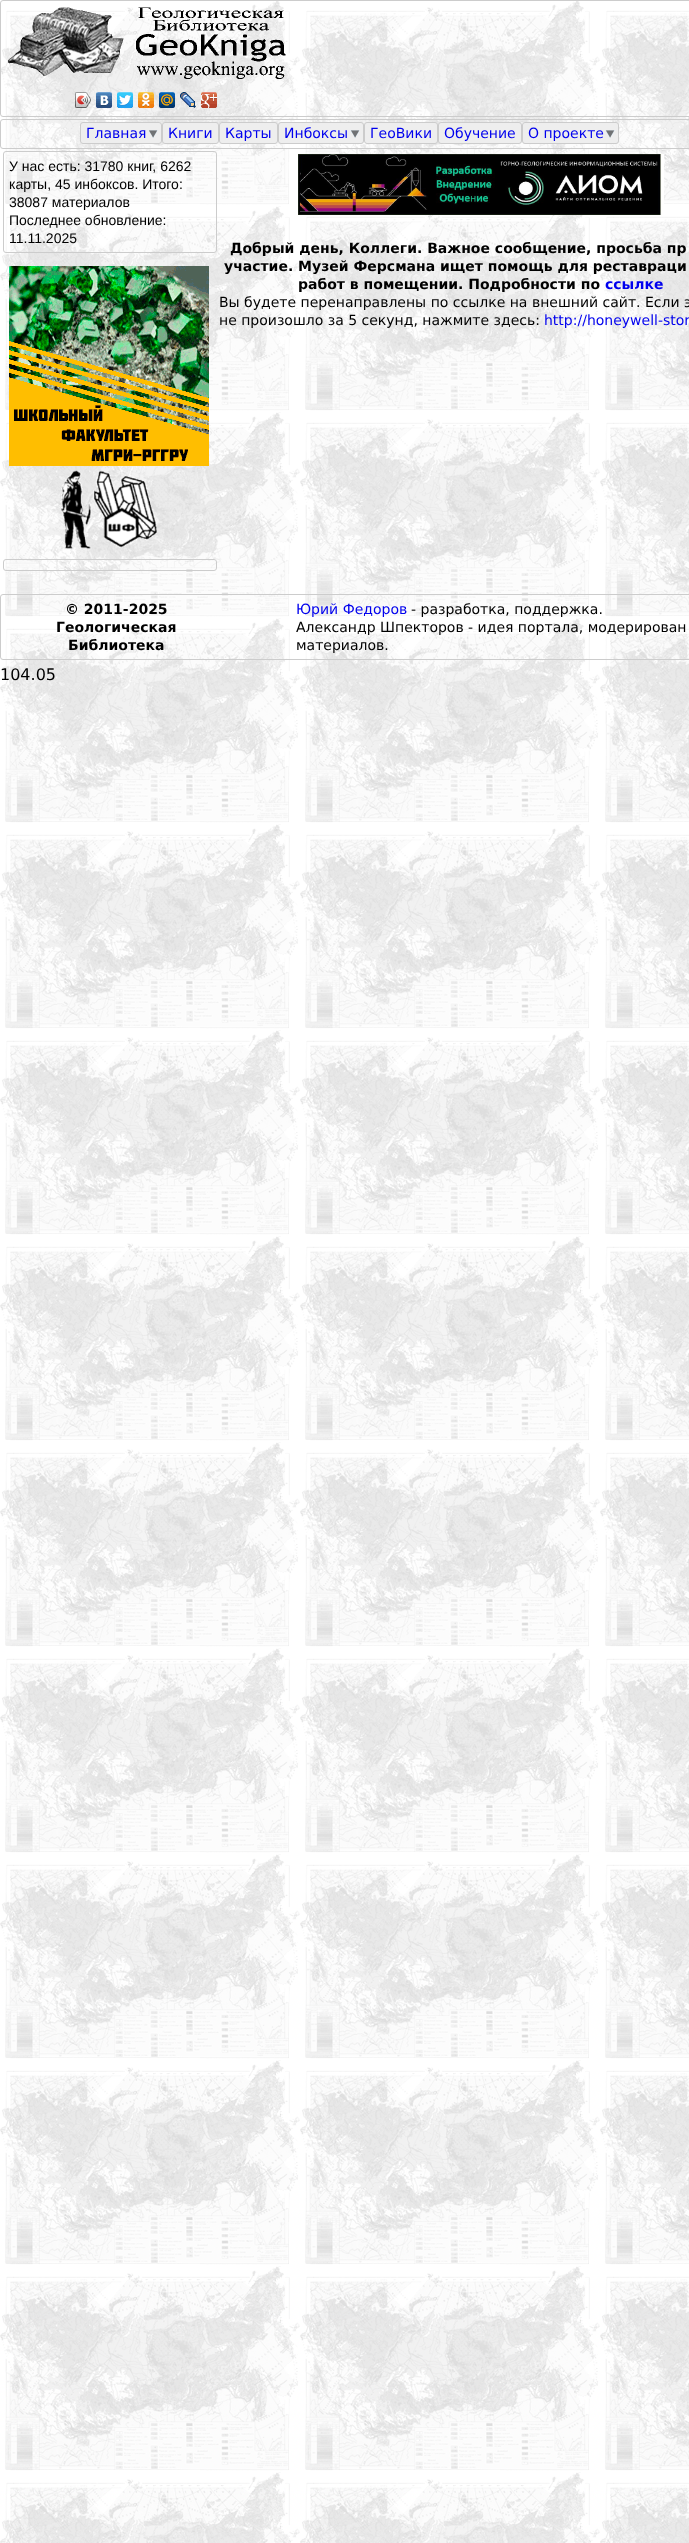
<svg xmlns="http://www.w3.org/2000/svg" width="689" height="2543">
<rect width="100%" height="100%" fill="#fff"/>
<image x="0" y="1" width="689" height="2542" href="media/1.png"/>
<rect x="0.5" y="0.5" width="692" height="116" rx="2.5" fill="none" stroke="#ccc"/>
<image x="8" y="7" width="278" height="72" href="media/2.png"/>
<image x="75" y="92" width="16" height="16" href="media/3.png"/>
<image x="75" y="92" width="16" height="16" href="media/4.png"/>
<image x="96" y="92" width="16" height="16" href="media/5.png"/>
<image x="117" y="92" width="16" height="16" href="media/6.png"/>
<image x="138" y="92" width="16" height="16" href="media/7.png"/>
<image x="159" y="92" width="16" height="16" href="media/8.png"/>
<image x="180" y="92" width="16" height="16" href="media/9.png"/>
<image x="201" y="92" width="16" height="16" href="media/10.png"/>
<rect x="0.5" y="119.5" width="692" height="29" rx="2.5" fill="none" stroke="#ccc"/>
<rect x="80" y="122" width="82" height="22" rx="3" fill="#eee"/>
<image x="148" y="130" width="10" height="8" href="media/11.png"/>
<rect x="80.5" y="122.5" width="81" height="21" rx="2.5" fill="none" stroke="#ccc"/>
<text x="86" y="138" style="font-family:DejaVu Sans;font-size:14px;fill:#00e">Главная</text>
<rect x="162.5" y="122.5" width="56" height="21" rx="2.5" fill="#eee" stroke="#ccc"/>
<text x="168" y="138" style="font-family:DejaVu Sans;font-size:14px;fill:#00e">Книги</text>
<rect x="219.5" y="122.5" width="58" height="21" rx="2.5" fill="#eee" stroke="#ccc"/>
<text x="225" y="138" style="font-family:DejaVu Sans;font-size:14px;fill:#00e">Карты</text>
<rect x="278" y="122" width="86" height="22" rx="3" fill="#eee"/>
<image x="350" y="130" width="10" height="8" href="media/11.png"/>
<rect x="278.5" y="122.5" width="85" height="21" rx="2.5" fill="none" stroke="#ccc"/>
<text x="284" y="138" style="font-family:DejaVu Sans;font-size:14px;fill:#00e">Инбоксы</text>
<rect x="364.5" y="122.5" width="73" height="21" rx="2.5" fill="#eee" stroke="#ccc"/>
<text x="370" y="138" style="font-family:DejaVu Sans;font-size:14px;fill:#00e">ГеоВики</text>
<rect x="438.5" y="122.5" width="83" height="21" rx="2.5" fill="#eee" stroke="#ccc"/>
<text x="444" y="138" style="font-family:DejaVu Sans;font-size:14px;fill:#00e">Обучение</text>
<rect x="522" y="122" width="97" height="22" rx="3" fill="#eee"/>
<image x="605" y="130" width="10" height="8" href="media/11.png"/>
<rect x="522.5" y="122.5" width="96" height="21" rx="2.5" fill="none" stroke="#ccc"/>
<text x="528" y="138" style="font-family:DejaVu Sans;font-size:14px;fill:#00e">О проекте</text>
<rect x="3.5" y="151.5" width="213" height="101" rx="2.5" fill="none" stroke="#ccc"/>
<text x="9" y="171" style="font-family:Liberation Sans;font-size:14px;fill:#000">У нас есть: 31780 книг, 6262</text>
<text x="9" y="189" style="font-family:Liberation Sans;font-size:14px;fill:#000">карты, 45 инбоксов. Итого:</text>
<text x="9" y="207" style="font-family:Liberation Sans;font-size:14px;fill:#000">38087 материалов</text>
<text x="9" y="225" style="font-family:Liberation Sans;font-size:14px;fill:#000">Последнее обновление:</text>
<text x="9" y="243" style="font-family:Liberation Sans;font-size:14px;fill:#000">11.11.2025</text>
<image x="9" y="266" width="200" height="200" href="media/12.png"/>
<image x="61" y="470" width="96" height="79" href="media/13.png"/>
<rect x="3.5" y="559.5" width="213" height="11" rx="2.5" fill="none" stroke="#ccc"/>
<image x="298" y="154" width="366" height="61" href="media/14.png"/>
<text x="230" y="253" style="font-family:DejaVu Sans;font-size:14px;font-weight:bold;fill:#000">Добрый день, Коллеги. Важное сообщение, просьба пр</text>
<text x="224" y="271" style="font-family:DejaVu Sans;font-size:14px;font-weight:bold;fill:#000">участие. Музей Ферсмана ищет помощь для реставраци</text>
<text x="298" y="289" style="font-family:DejaVu Sans;font-size:14px;font-weight:bold;fill:#000">работ в помещении. Подробности по</text>
<text x="605" y="289" style="font-family:DejaVu Sans;font-size:14px;font-weight:bold;fill:#00e">ссылке</text>
<text x="219" y="307" style="font-family:DejaVu Sans;font-size:14px;fill:#000">Вы будете перенаправлены по ссылке на внешний сайт. Если э</text>
<text x="219" y="325" style="font-family:DejaVu Sans;font-size:14px;fill:#000">не произошло за 5 секунд, нажмите здесь:</text>
<text x="544" y="325" style="font-family:DejaVu Sans;font-size:14px;fill:#00e">http://honeywell-stor</text>
<rect x="0.5" y="594.5" width="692" height="65" rx="2.5" fill="none" stroke="#ccc"/>
<text x="65" y="614" style="font-family:DejaVu Sans;font-size:14px;font-weight:bold;fill:#000">© 2011-2025</text>
<text x="56" y="632" style="font-family:DejaVu Sans;font-size:14px;font-weight:bold;fill:#000">Геологическая</text>
<text x="68" y="650" style="font-family:DejaVu Sans;font-size:14px;font-weight:bold;fill:#000">Библиотека</text>
<text x="296" y="614" style="font-family:DejaVu Sans;font-size:14px;fill:#00e">Юрий Федоров</text>
<text x="411" y="614" style="font-family:DejaVu Sans;font-size:14px;fill:#000">- разработка, поддержка.</text>
<text x="296" y="632" style="font-family:DejaVu Sans;font-size:14px;fill:#000">Александр Шпекторов - идея портала, модерирован</text>
<text x="296" y="650" style="font-family:DejaVu Sans;font-size:14px;fill:#000">материалов.</text>
<text x="0" y="680" style="font-family:DejaVu Sans;font-size:16px;fill:#000">104.05</text>
</svg>
